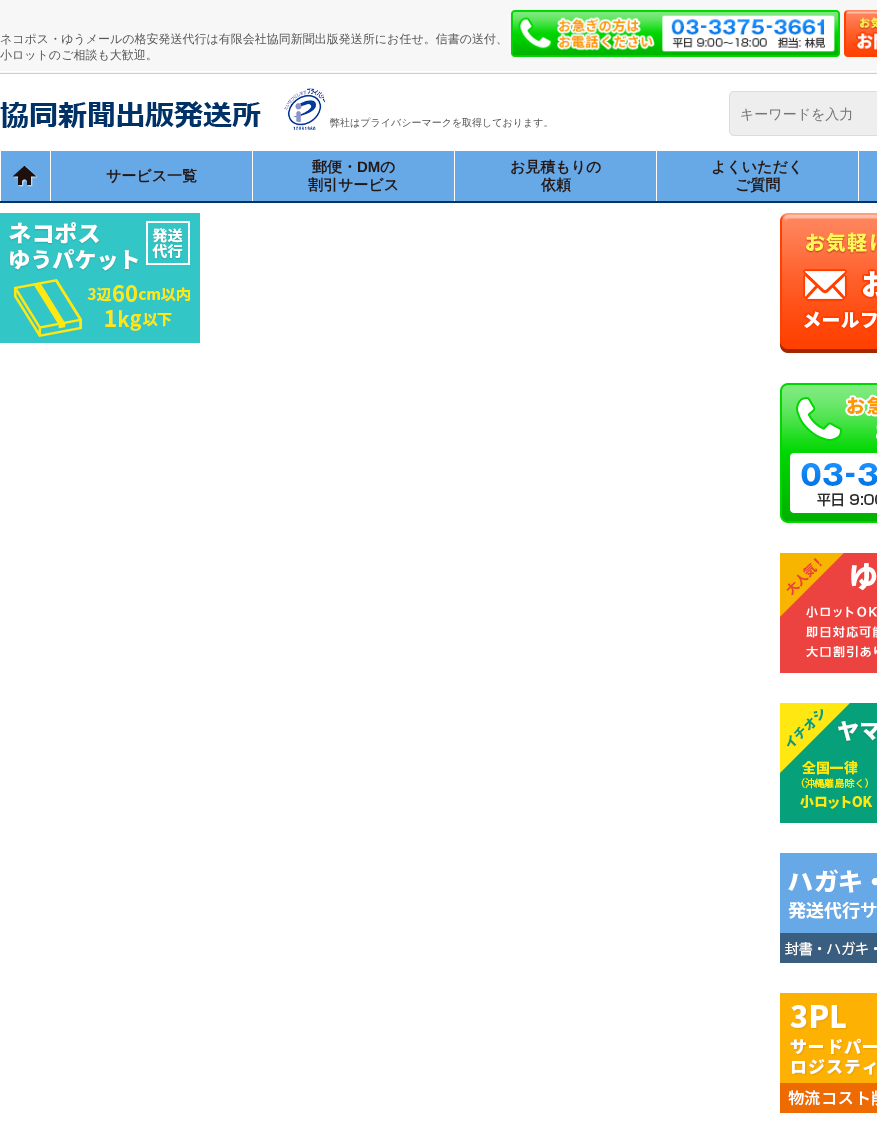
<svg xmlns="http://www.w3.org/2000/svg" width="877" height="1127">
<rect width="100%" height="100%" fill="#fff"/>
<rect width="877" height="73" fill="#f7f7f7"/>
<rect y="73" width="877" height="1" fill="#cececf"/>
<text x="0" y="43" style="font-family:WenQuanYi Zen Hei;font-size:12px;font-weight:500;fill:#595757">ネコポス・ゆうメールの格安発送代行は有限会社協同新聞出版発送所にお任せ。信書の送付、</text>
<text x="0" y="59" style="font-family:WenQuanYi Zen Hei;font-size:12px;font-weight:500;fill:#595757">小ロットのご相談も大歓迎。</text>
<image x="511" y="10" width="329" height="47" href="media/1.png"/>
<image x="844" y="10" width="33" height="47" href="media/2.png"/>
<rect y="71" width="877" height="1" fill="#fff"/>
<image x="0" y="101" width="261" height="27" href="media/3.png"/>
<image x="284" y="88" width="41" height="42" href="media/4.png"/>
<text x="330" y="126" style="font-family:WenQuanYi Zen Hei;font-size:10px;font-weight:500;fill:#535353">弊社はプライバシーマークを取得しております。</text>
<path d="M734 91h143v45h-143c-3 0-5-2-5-5v-35c0-3 2-5 5-5z" fill="#eeeeef"/>
<rect x="729.5" y="91.5" width="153" height="44" rx="4.5" fill="none" stroke="#dbdcdc"/>
<text x="740" y="119" style="font-family:WenQuanYi Zen Hei;font-size:14px;font-weight:500;fill:#757575">キーワードを入力</text>
<rect x="1" y="151" width="876" height="50" fill="#67a8e6"/>
<rect y="201" width="877" height="2" fill="#003567"/>
<image x="13" y="166" width="25" height="21" href="media/5.png"/>
<rect x="50" y="151" width="1" height="50" fill="#fff"/>
<text x="106" y="181" style="font-family:WenQuanYi Zen Hei;font-size:15px;font-weight:bold;fill:#231815">サービス一覧</text>
<rect x="252" y="151" width="1" height="50" fill="#fff"/>
<text x="312" y="172" style="font-family:WenQuanYi Zen Hei;font-size:15px;font-weight:bold;fill:#231815">郵便・</text>
<text x="357" y="172" style="font-family:Liberation Sans;font-size:15px;font-weight:bold;fill:#231815">DM</text>
<text x="380" y="172" style="font-family:WenQuanYi Zen Hei;font-size:15px;font-weight:bold;fill:#231815">の</text>
<text x="308" y="190" style="font-family:WenQuanYi Zen Hei;font-size:15px;font-weight:bold;fill:#231815">割引サービス</text>
<rect x="454" y="151" width="1" height="50" fill="#fff"/>
<text x="510" y="172" style="font-family:WenQuanYi Zen Hei;font-size:15px;font-weight:bold;fill:#231815">お見積もりの</text>
<text x="541" y="190" style="font-family:WenQuanYi Zen Hei;font-size:15px;font-weight:bold;fill:#231815">依頼</text>
<rect x="656" y="151" width="1" height="50" fill="#fff"/>
<text x="711" y="172" style="font-family:WenQuanYi Zen Hei;font-size:15px;font-weight:bold;fill:#231815">よくいただく</text>
<text x="735" y="190" style="font-family:WenQuanYi Zen Hei;font-size:15px;font-weight:bold;fill:#231815">ご質問</text>
<rect x="858" y="151" width="1" height="50" fill="#fff"/>
<image x="0" y="213" width="200" height="130" href="media/6.png"/>
<image x="780" y="213" width="97" height="140" href="media/7.png"/>
<image x="780" y="383" width="97" height="140" href="media/8.png"/>
<image x="780" y="553" width="97" height="120" href="media/9.png"/>
<image x="780" y="703" width="97" height="120" href="media/10.png"/>
<image x="780" y="853" width="97" height="110" href="media/11.png"/>
<image x="780" y="993" width="97" height="120" href="media/12.png"/>
</svg>
